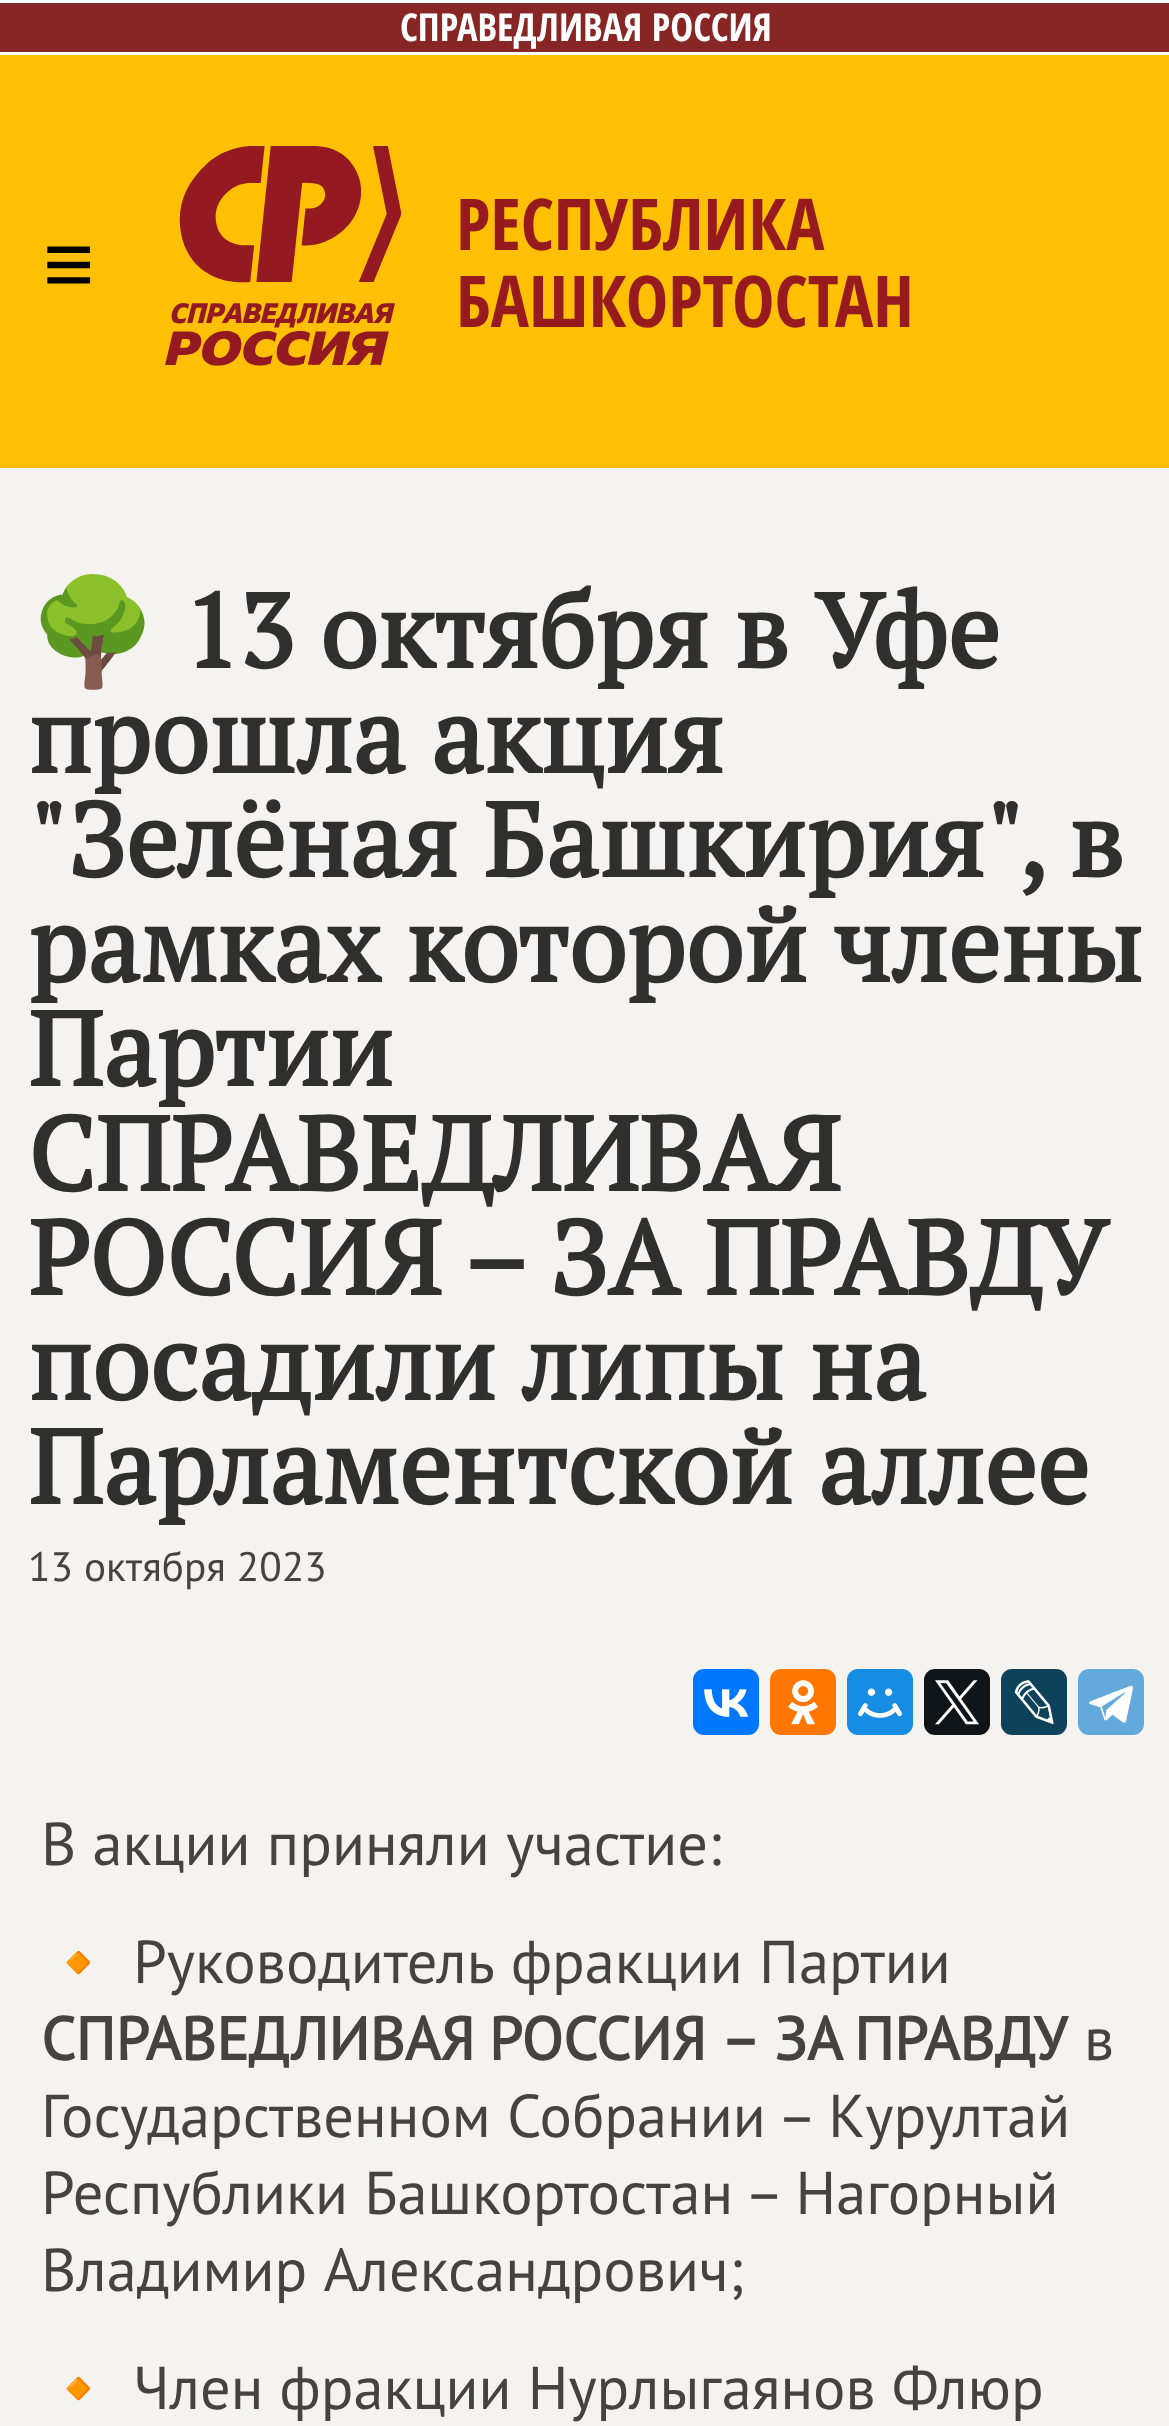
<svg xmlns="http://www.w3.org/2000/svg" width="1169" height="2426">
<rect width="100%" height="100%" fill="#f4f3ef"/>
<rect y="55" width="1169" height="413" fill="#ffc003"/>
<rect y="3" width="1169" height="49" fill="#882625"/>
<rect width="1169" height="3" fill="#fff"/>
<rect y="52" width="1169" height="3" fill="#fff"/>
<text x="400" y="41" style="font-family:Open Sans Condensed;font-size:38.5px;font-weight:bold;fill:#fff">СПРАВЕДЛИВАЯ РОССИЯ</text>
<text x="43" y="294" style="font-family:Liberation Sans;font-size:88px;fill:#000">≡</text>
<image x="165" y="146" width="237" height="220" href="media/1.png"/>
<text x="456" y="250" style="font-family:Open Sans Condensed;font-size:71.5px;font-weight:bold;fill:#971b1e">РЕСПУБЛИКА</text>
<text x="456" y="327" style="font-family:Open Sans Condensed;font-size:71.5px;font-weight:bold;fill:#971b1e">БАШКОРТОСТАН</text>
<text x="28" y="668" style="font-family:Noto Color Emoji;font-size:104.5px;font-weight:bold;fill:#2f2f2d">🌳</text>
<text x="183" y="668" style="font-family:PT Serif;font-size:104.5px;font-weight:bold;fill:#2f2f2d">13 октября в Уфе</text>
<text x="28" y="773" style="font-family:PT Serif;font-size:104.5px;font-weight:bold;fill:#2f2f2d">прошла акция</text>
<text x="28" y="877" style="font-family:PT Serif;font-size:104.5px;font-weight:bold;fill:#2f2f2d">"Зелёная Башкирия", в</text>
<text x="28" y="982" style="font-family:PT Serif;font-size:104.5px;font-weight:bold;fill:#2f2f2d">рамках которой члены</text>
<text x="28" y="1086" style="font-family:PT Serif;font-size:104.5px;font-weight:bold;fill:#2f2f2d">Партии</text>
<text x="28" y="1191" style="font-family:PT Serif;font-size:104.5px;font-weight:bold;fill:#2f2f2d">СПРАВЕДЛИВАЯ</text>
<text x="28" y="1295" style="font-family:PT Serif;font-size:104.5px;font-weight:bold;fill:#2f2f2d">РОССИЯ – ЗА ПРАВДУ</text>
<text x="28" y="1400" style="font-family:PT Serif;font-size:104.5px;font-weight:bold;fill:#2f2f2d">посадили липы на</text>
<text x="28" y="1504" style="font-family:PT Serif;font-size:104.5px;font-weight:bold;fill:#2f2f2d">Парламентской аллее</text>
<text x="28" y="1581" style="font-family:PT Sans;font-size:41.25px;fill:#44433f">13 октября 2023</text>
<rect x="693" y="1669" width="66" height="66" rx="11" fill="#07f"/>
<image x="704" y="1689" width="45" height="28" href="media/2.png"/>
<rect x="770" y="1669" width="66" height="66" rx="11" fill="#f70"/>
<image x="788" y="1680" width="30" height="45" href="media/3.png"/>
<rect x="847" y="1669" width="66" height="66" rx="11" fill="#168de2"/>
<image x="858" y="1688" width="44" height="30" href="media/4.png"/>
<rect x="924" y="1669" width="66" height="66" rx="11" fill="#0f1419"/>
<image x="935" y="1680" width="44" height="45" href="media/5.png"/>
<rect x="1001" y="1669" width="66" height="66" rx="11" fill="#0d425a"/>
<image x="1014" y="1680" width="40" height="45" href="media/6.png"/>
<rect x="1078" y="1669" width="66" height="66" rx="11" fill="#64a9dc"/>
<image x="1089" y="1685" width="44" height="38" href="media/7.png"/>
<text x="41" y="1865" style="font-family:PT Sans;font-size:60.5px;fill:#44433f">В акции приняли участие:</text>
<text x="41" y="1983" style="font-family:Noto Color Emoji;font-size:60.5px;fill:#44433f">🔸</text>
<text x="133" y="1983" style="font-family:PT Sans;font-size:60.5px;fill:#44433f">Руководитель фракции Партии</text>
<text x="41" y="2060" word-spacing="-2" style="font-family:PT Sans;font-size:60.5px;font-weight:bold;fill:#44433f">СПРАВЕДЛИВАЯ РОССИЯ – ЗА ПРАВДУ</text>
<text x="1084" y="2060" style="font-family:PT Sans;font-size:60.5px;fill:#44433f">в</text>
<text x="41" y="2137" style="font-family:PT Sans;font-size:60.5px;fill:#44433f">Государственном Собрании – Курултай</text>
<text x="41" y="2214" style="font-family:PT Sans;font-size:60.5px;fill:#44433f">Республики Башкортостан – Нагорный</text>
<text x="41" y="2291" style="font-family:PT Sans;font-size:60.5px;fill:#44433f">Владимир Александрович;</text>
<text x="41" y="2409" style="font-family:Noto Color Emoji;font-size:60.5px;fill:#44433f">🔸</text>
<text x="133" y="2409" style="font-family:PT Sans;font-size:60.5px;fill:#44433f">Член фракции Нурлыгаянов Флюр</text>
</svg>
